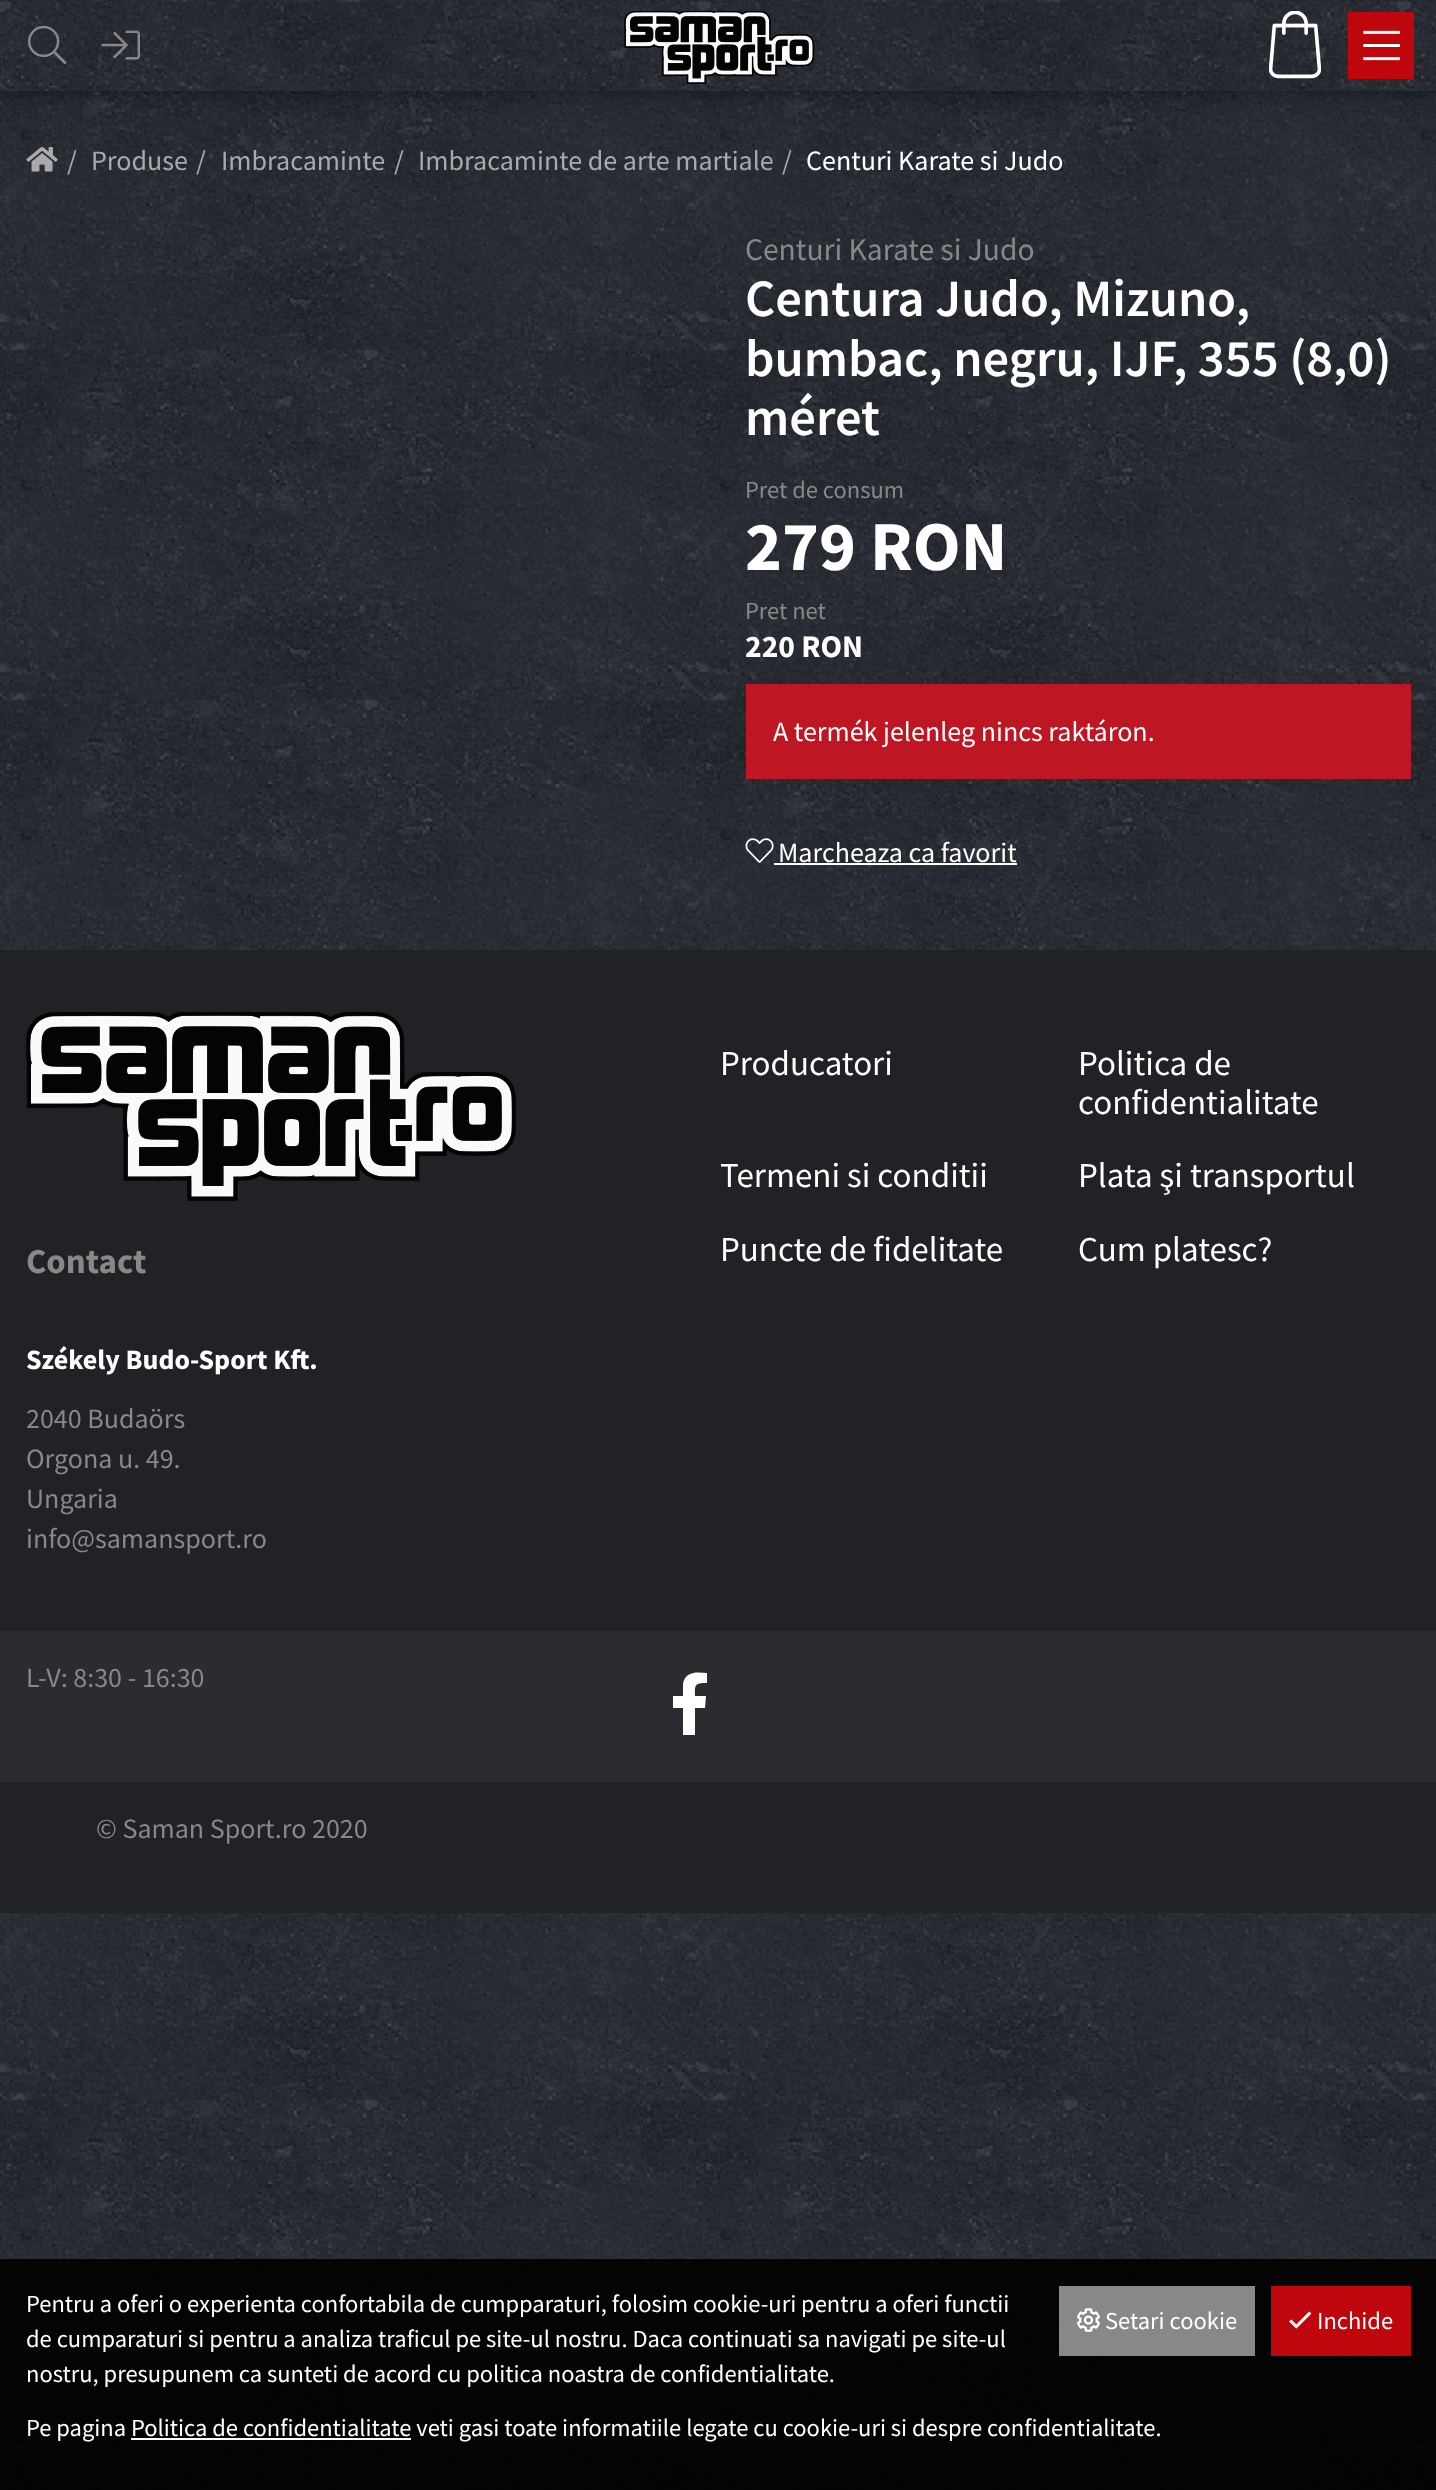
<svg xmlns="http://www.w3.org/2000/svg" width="1436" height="2490">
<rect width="100%" height="100%" fill="#fff"/>
<image x="0" y="91" width="1436" height="2399" href="media/1.png"/>
<rect width="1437" height="91" fill="#00000033" filter="blur(13px)"/>
<rect width="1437" height="91" fill="#0000004d" filter="blur(9px)"/>
<image x="0" y="0" width="1436" height="91" href="media/2.png"/>
<image x="28" y="25" width="39" height="40" href="media/3.png"/>
<image x="101" y="30" width="39" height="30" href="media/4.png"/>
<image x="624" y="11" width="191" height="73" href="media/5.png"/>
<image x="1269" y="11" width="52" height="68" href="media/6.png"/>
<rect x="1348" y="12" width="66" height="67" fill="#c0060d"/>
<image x="1363" y="30" width="37" height="31" href="media/7.png"/>
<image x="26" y="147" width="32" height="25" href="media/8.png"/>
<text x="67" y="170" style="font-family:Source Sans Pro;font-size:28px;fill:#aaa">/</text>
<text x="91" y="170" style="font-family:Source Sans Pro;font-size:28px;fill:#aaa">Produse</text>
<text x="196" y="170" style="font-family:Source Sans Pro;font-size:28px;fill:#aaa">/</text>
<text x="221" y="170" style="font-family:Source Sans Pro;font-size:28px;fill:#aaa">Imbracaminte</text>
<text x="394" y="170" style="font-family:Source Sans Pro;font-size:28px;fill:#aaa">/</text>
<text x="418" y="170" style="font-family:Source Sans Pro;font-size:28px;fill:#aaa">Imbracaminte de arte martiale</text>
<text x="782" y="170" style="font-family:Source Sans Pro;font-size:28px;fill:#aaa">/</text>
<text x="806" y="170" style="font-family:Source Sans Pro;font-size:28px;fill:#fff">Centuri Karate si Judo</text>
<text x="745" y="260" style="font-family:Source Sans Pro;font-size:31.5px;fill:#888">Centuri Karate si Judo</text>
<text x="745" y="316" style="font-family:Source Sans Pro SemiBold;font-size:52.5px;font-weight:600;fill:#fff">Centura Judo, Mizuno,</text>
<text x="745" y="376" style="font-family:Source Sans Pro SemiBold;font-size:52.5px;font-weight:600;fill:#fff">bumbac, negru, IJF, 355 (8,0)</text>
<text x="745" y="435" style="font-family:Source Sans Pro SemiBold;font-size:52.5px;font-weight:600;fill:#fff">méret</text>
<text x="745" y="498" style="font-family:Source Sans Pro;font-size:24.5px;fill:#888">Pret de consum</text>
<text x="745" y="570" style="font-family:Source Sans Pro;font-size:70px;font-weight:bold;fill:#fff">279 RON</text>
<text x="745" y="619" style="font-family:Source Sans Pro;font-size:24.5px;fill:#888">Pret net</text>
<text x="745" y="657" style="font-family:Source Sans Pro;font-size:31.5px;font-weight:bold;fill:#fff">220 RON</text>
<rect x="746" y="684" width="665" height="95" fill="#be1622"/>
<text x="773" y="741" style="font-family:Source Sans Pro;font-size:28px;fill:#fff">A termék jelenleg nincs raktáron.</text>
<image x="745" y="838" width="29" height="25" href="media/9.png"/>
<text x="778" y="862" style="font-family:Source Sans Pro;font-size:28px;fill:#fff">Marcheaza ca favorit</text>
<rect x="774" y="863" width="243" height="2" fill="#fff"/>
<rect y="950" width="1436" height="963" fill="#202226"/>
<text x="720" y="1075" style="font-family:Source Sans Pro;font-size:35px;fill:#fff">Producatori</text>
<text x="1078" y="1075" style="font-family:Source Sans Pro;font-size:35px;fill:#fff">Politica de</text>
<text x="1078" y="1114" style="font-family:Source Sans Pro;font-size:35px;fill:#fff">confidentialitate</text>
<text x="720" y="1187" style="font-family:Source Sans Pro;font-size:35px;fill:#fff">Termeni si conditii</text>
<text x="1078" y="1187" style="font-family:Source Sans Pro;font-size:35px;fill:#fff">Plata şi transportul</text>
<text x="720" y="1261" style="font-family:Source Sans Pro;font-size:35px;fill:#fff">Puncte de fidelitate</text>
<text x="1078" y="1261" style="font-family:Source Sans Pro;font-size:35px;fill:#fff">Cum platesc?</text>
<image x="26" y="1012" width="490" height="189" href="media/10.png"/>
<text x="26" y="1273" style="font-family:Source Sans Pro;font-size:35px;font-weight:bold;fill:#888">Contact</text>
<text x="26" y="1369" style="font-family:Source Sans Pro;font-size:28px;font-weight:bold;fill:#fff">Székely Budo-Sport Kft.</text>
<text x="26" y="1428" style="font-family:Source Sans Pro;font-size:28px;fill:#888">2040 Budaörs</text>
<text x="26" y="1468" style="font-family:Source Sans Pro;font-size:28px;fill:#888">Orgona u. 49.</text>
<text x="26" y="1508" style="font-family:Source Sans Pro;font-size:28px;fill:#888">Ungaria</text>
<text x="26" y="1548" style="font-family:Source Sans Pro;font-size:28px;fill:#888">info@samansport.ro</text>
<rect y="1631" width="1436" height="151" fill="#2b2c30"/>
<text x="26" y="1687" style="font-family:Source Sans Pro;font-size:28px;fill:#888">L-V: 8:30 - 16:30</text>
<path d="M705 1708h-10v27h-12v-27h-10v-12h10v-12c2-13 14-12 24-11v10c-13 0-12 2-12 13h11z" fill="#fff"/>
<text x="96" y="1838" style="font-family:Source Sans Pro;font-size:28px;fill:#888">© Saman Sport.ro 2020</text>
<rect y="2259" width="1436" height="231" fill="#000000e6"/>
<text x="26" y="2312" style="font-family:Source Sans Pro;font-size:24.5px;fill:#fff">Pentru a oferi o experienta confortabila de cumpparaturi, folosim cookie-uri pentru a oferi functii</text>
<text x="26" y="2347" style="font-family:Source Sans Pro;font-size:24.5px;fill:#fff">de cumparaturi si pentru a analiza traficul pe site-ul nostru. Daca continuati sa navigati pe site-ul</text>
<text x="26" y="2382" style="font-family:Source Sans Pro;font-size:24.5px;fill:#fff">nostru, presupunem ca sunteti de acord cu politica noastra de confidentialitate.</text>
<rect x="1059" y="2286" width="196" height="70" fill="#888"/>
<image x="1077" y="2308" width="23" height="24" href="media/11.png"/>
<text x="1105" y="2329" style="font-family:Source Sans Pro;font-size:24.5px;fill:#fff">Setari cookie</text>
<rect x="1271" y="2286" width="140" height="70" fill="#c0060d"/>
<image x="1289" y="2311" width="23" height="18" href="media/12.png"/>
<text x="1317" y="2329" style="font-family:Source Sans Pro;font-size:24.5px;fill:#fff">Inchide</text>
<text x="26" y="2436" style="font-family:Source Sans Pro;font-size:24.5px;fill:#fff">Pe pagina Politica de confidentialitate veti gasi toate informatiile legate cu cookie-uri si despre confidentialitate.</text>
<rect x="131" y="2438" width="280" height="2" fill="#fff"/>
</svg>
